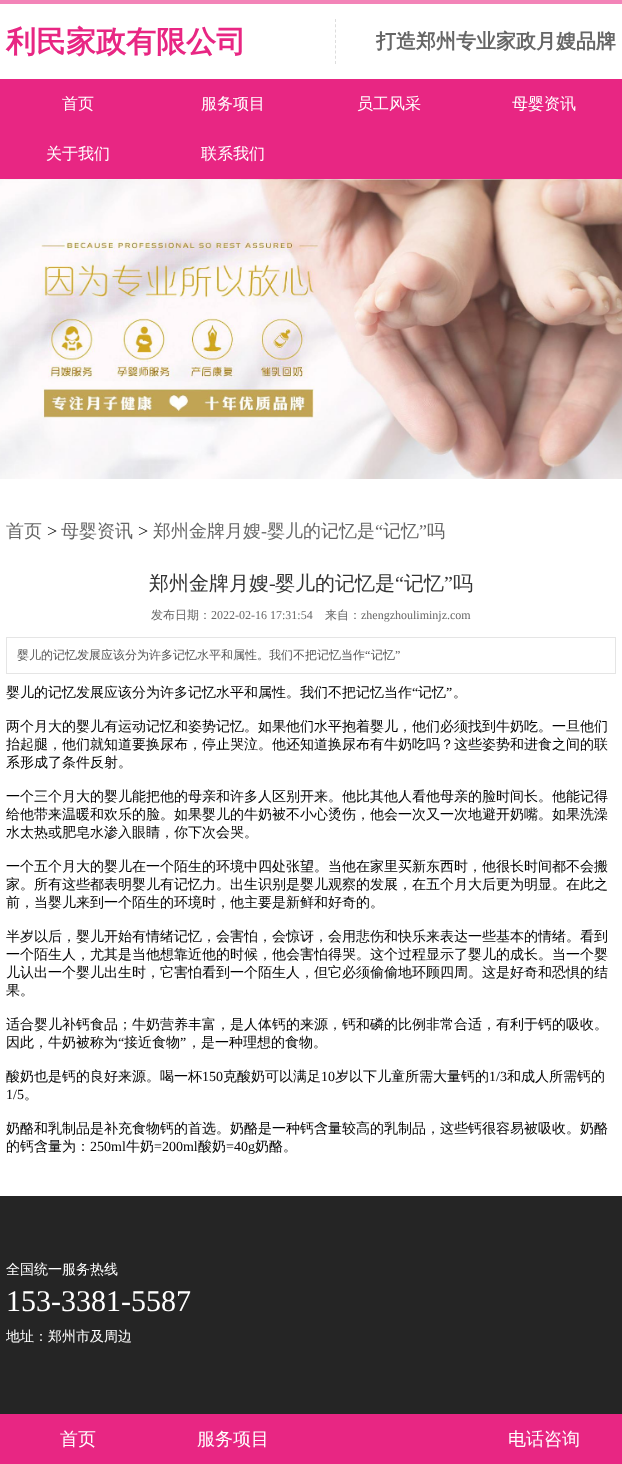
<svg xmlns="http://www.w3.org/2000/svg" width="622" height="1464">
<rect width="100%" height="100%" fill="#fff"/>
<rect width="622" height="4" fill="#f384b8"/>
<text x="6" y="52" style="font-family:WenQuanYi Zen Hei;font-size:30px;font-weight:bold;fill:#e82683">利民家政有限公司</text>
<path d="M335.5 19v45" fill="none" stroke="#ddd" stroke-dasharray="3 2.25"/>
<text x="376" y="48" style="font-family:WenQuanYi Zen Hei;font-size:20px;font-weight:bold;fill:#666">打造郑州专业家政月嫂品牌</text>
<rect y="79" width="622" height="100" fill="#e82683"/>
<text x="62" y="109" style="font-family:WenQuanYi Zen Hei;font-size:16px;font-weight:500;fill:#fff">首页</text>
<text x="201" y="109" style="font-family:WenQuanYi Zen Hei;font-size:16px;font-weight:500;fill:#fff">服务项目</text>
<text x="357" y="109" style="font-family:WenQuanYi Zen Hei;font-size:16px;font-weight:500;fill:#fff">员工风采</text>
<text x="512" y="109" style="font-family:WenQuanYi Zen Hei;font-size:16px;font-weight:500;fill:#fff">母婴资讯</text>
<text x="46" y="159" style="font-family:WenQuanYi Zen Hei;font-size:16px;font-weight:500;fill:#fff">关于我们</text>
<text x="201" y="159" style="font-family:WenQuanYi Zen Hei;font-size:16px;font-weight:500;fill:#fff">联系我们</text>
<image x="0" y="179" width="622" height="300" href="media/1.png"/>
<text x="6" y="537" style="font-family:WenQuanYi Zen Hei;font-size:18px;font-weight:500;fill:#666">首页</text>
<text x="47" y="537" style="font-family:Liberation Serif;font-size:18px;fill:#000">&gt;</text>
<text x="61" y="537" style="font-family:WenQuanYi Zen Hei;font-size:18px;font-weight:500;fill:#666">母婴资讯</text>
<text x="138" y="537" style="font-family:Liberation Serif;font-size:18px;fill:#000">&gt;</text>
<text x="153" y="537" style="font-family:WenQuanYi Zen Hei;font-size:18px;font-weight:500;fill:#666">郑州金牌月嫂</text>
<text x="261" y="537" style="font-family:Liberation Serif;font-size:18px;fill:#666">-</text>
<text x="267" y="537" style="font-family:WenQuanYi Zen Hei;font-size:18px;font-weight:500;fill:#666">婴儿的记忆是</text>
<text x="375" y="537" style="font-family:Liberation Serif;font-size:18px;fill:#666">“</text>
<text x="383" y="537" style="font-family:WenQuanYi Zen Hei;font-size:18px;font-weight:500;fill:#666">记忆</text>
<text x="419" y="537" style="font-family:Liberation Serif;font-size:18px;fill:#666">”</text>
<text x="427" y="537" style="font-family:WenQuanYi Zen Hei;font-size:18px;font-weight:500;fill:#666">吗</text>
<text x="149" y="590" style="font-family:WenQuanYi Zen Hei;font-size:20px;font-weight:500;fill:#333">郑州金牌月嫂</text>
<text x="275" y="590" style="font-family:WenQuanYi Zen Hei;font-size:20px;font-weight:500;fill:#333">婴儿的记忆是</text>
<text x="395" y="590" style="font-family:Liberation Serif;font-size:20px;fill:#333">“</text>
<text x="404" y="590" style="font-family:WenQuanYi Zen Hei;font-size:20px;font-weight:500;fill:#333">记忆</text>
<text x="444" y="590" style="font-family:Liberation Serif;font-size:20px;fill:#333">”</text>
<text x="453" y="590" style="font-family:WenQuanYi Zen Hei;font-size:20px;font-weight:500;fill:#333">吗</text>
<text x="269" y="590" style="font-family:Liberation Serif;font-size:20px;fill:#333">-</text>
<text x="151" y="619" style="font-family:WenQuanYi Zen Hei;font-size:12px;font-weight:500;fill:#666">发布日期：</text>
<text x="211" y="619" style="font-family:Liberation Serif;font-size:12px;fill:#666">2022-02-16 17:31:54</text>
<text x="325" y="619" style="font-family:WenQuanYi Zen Hei;font-size:12px;font-weight:500;fill:#666">来自：</text>
<text x="361" y="619" style="font-family:Liberation Serif;font-size:12px;fill:#666">zhengzhouliminjz.com</text>
<rect x="6.5" y="637.5" width="609" height="36" fill="none" stroke="#e5e5e5"/>
<text x="17" y="659" style="font-family:WenQuanYi Zen Hei;font-size:12px;font-weight:500;fill:#555">婴儿的记忆发展应该分为许多记忆水平和属性。我们不把记忆当作</text>
<text x="365" y="659" style="font-family:Liberation Serif;font-size:12px;fill:#555">“</text>
<text x="371" y="659" style="font-family:WenQuanYi Zen Hei;font-size:12px;font-weight:500;fill:#555">记忆</text>
<text x="395" y="659" style="font-family:Liberation Serif;font-size:12px;fill:#555">”</text>
<text x="6" y="697" style="font-family:WenQuanYi Zen Hei;font-size:14px;font-weight:500;fill:#000">婴儿的记忆发展应该分为许多记忆水平和属性。我们不把记忆当作</text>
<text x="412" y="697" style="font-family:Liberation Serif;font-size:14px;fill:#000">“</text>
<text x="418" y="697" style="font-family:WenQuanYi Zen Hei;font-size:14px;font-weight:500;fill:#000">记忆</text>
<text x="446" y="697" style="font-family:Liberation Serif;font-size:14px;fill:#000">”</text>
<text x="453" y="697" style="font-family:WenQuanYi Zen Hei;font-size:14px;font-weight:500;fill:#000">。</text>
<text x="6" y="731" style="font-family:WenQuanYi Zen Hei;font-size:14px;font-weight:500;fill:#000">两个月大的婴儿有运动记忆和姿势记忆。如果他们水平抱着婴儿，他们必须找到牛奶吃。一旦他们</text>
<text x="6" y="749" style="font-family:WenQuanYi Zen Hei;font-size:14px;font-weight:500;fill:#000">抬起腿，他们就知道要换尿布，停止哭泣。他还知道换尿布有牛奶吃吗？这些姿势和进食之间的联</text>
<text x="6" y="767" style="font-family:WenQuanYi Zen Hei;font-size:14px;font-weight:500;fill:#000">系形成了条件反射。</text>
<text x="6" y="801" style="font-family:WenQuanYi Zen Hei;font-size:14px;font-weight:500;fill:#000">一个三个月大的婴儿能把他的母亲和许多人区别开来。他比其他人看他母亲的脸时间长。他能记得</text>
<text x="6" y="819" style="font-family:WenQuanYi Zen Hei;font-size:14px;font-weight:500;fill:#000">给他带来温暖和欢乐的脸。如果婴儿的牛奶被不小心烫伤，他会一次又一次地避开奶嘴。如果洗澡</text>
<text x="6" y="837" style="font-family:WenQuanYi Zen Hei;font-size:14px;font-weight:500;fill:#000">水太热或肥皂水渗入眼睛，你下次会哭。</text>
<text x="6" y="871" style="font-family:WenQuanYi Zen Hei;font-size:14px;font-weight:500;fill:#000">一个五个月大的婴儿在一个陌生的环境中四处张望。当他在家里买新东西时，他很长时间都不会搬</text>
<text x="6" y="889" style="font-family:WenQuanYi Zen Hei;font-size:14px;font-weight:500;fill:#000">家。所有这些都表明婴儿有记忆力。出生识别是婴儿观察的发展，在五个月大后更为明显。在此之</text>
<text x="6" y="907" style="font-family:WenQuanYi Zen Hei;font-size:14px;font-weight:500;fill:#000">前，当婴儿来到一个陌生的环境时，他主要是新鲜和好奇的。</text>
<text x="6" y="941" style="font-family:WenQuanYi Zen Hei;font-size:14px;font-weight:500;fill:#000">半岁以后，婴儿开始有情绪记忆，会害怕，会惊讶，会用悲伤和快乐来表达一些基本的情绪。看到</text>
<text x="6" y="959" style="font-family:WenQuanYi Zen Hei;font-size:14px;font-weight:500;fill:#000">一个陌生人，尤其是当他想靠近他的时候，他会害怕得哭。这个过程显示了婴儿的成长。当一个婴</text>
<text x="6" y="977" style="font-family:WenQuanYi Zen Hei;font-size:14px;font-weight:500;fill:#000">儿认出一个婴儿出生时，它害怕看到一个陌生人，但它必须偷偷地环顾四周。这是好奇和恐惧的结</text>
<text x="6" y="995" style="font-family:WenQuanYi Zen Hei;font-size:14px;font-weight:500;fill:#000">果。</text>
<text x="6" y="1029" style="font-family:WenQuanYi Zen Hei;font-size:14px;font-weight:500;fill:#000">适合婴儿补钙食品；牛奶营养丰富，是人体钙的来源，钙和磷的比例非常合适，有利于钙的吸收。</text>
<text x="6" y="1047" style="font-family:WenQuanYi Zen Hei;font-size:14px;font-weight:500;fill:#000">因此，牛奶被称为</text>
<text x="118" y="1047" style="font-family:Liberation Serif;font-size:14px;fill:#000">“</text>
<text x="124" y="1047" style="font-family:WenQuanYi Zen Hei;font-size:14px;font-weight:500;fill:#000">接近食物</text>
<text x="180" y="1047" style="font-family:Liberation Serif;font-size:14px;fill:#000">”</text>
<text x="187" y="1047" style="font-family:WenQuanYi Zen Hei;font-size:14px;font-weight:500;fill:#000">，是一种理想的食物。</text>
<text x="6" y="1081" style="font-family:WenQuanYi Zen Hei;font-size:14px;font-weight:500;fill:#000">酸奶也是钙的良好来源。喝一杯</text>
<text x="202" y="1081" style="font-family:Liberation Serif;font-size:14px;fill:#000">150</text>
<text x="223" y="1081" style="font-family:WenQuanYi Zen Hei;font-size:14px;font-weight:500;fill:#000">克酸奶可以满足</text>
<text x="321" y="1081" style="font-family:Liberation Serif;font-size:14px;fill:#000">10</text>
<text x="335" y="1081" style="font-family:WenQuanYi Zen Hei;font-size:14px;font-weight:500;fill:#000">岁以下儿童所需大量钙的</text>
<text x="489" y="1081" style="font-family:Liberation Serif;font-size:14px;fill:#000">1/3</text>
<text x="507" y="1081" style="font-family:WenQuanYi Zen Hei;font-size:14px;font-weight:500;fill:#000">和成人所需钙的</text>
<text x="6" y="1099" style="font-family:Liberation Serif;font-size:14px;fill:#000">1/5</text>
<text x="24" y="1099" style="font-family:WenQuanYi Zen Hei;font-size:14px;font-weight:500;fill:#000">。</text>
<text x="6" y="1133" style="font-family:WenQuanYi Zen Hei;font-size:14px;font-weight:500;fill:#000">奶酪和乳制品是补充食物钙的首选。奶酪是一种钙含量较高的乳制品，这些钙很容易被吸收。奶酪</text>
<text x="6" y="1151" style="font-family:WenQuanYi Zen Hei;font-size:14px;font-weight:500;fill:#000">的钙含量为：</text>
<text x="90" y="1151" style="font-family:Liberation Serif;font-size:14px;fill:#000">250ml</text>
<text x="126" y="1151" style="font-family:WenQuanYi Zen Hei;font-size:14px;font-weight:500;fill:#000">牛奶</text>
<text x="154" y="1151" style="font-family:Liberation Serif;font-size:14px;fill:#000">=200ml</text>
<text x="198" y="1151" style="font-family:WenQuanYi Zen Hei;font-size:14px;font-weight:500;fill:#000">酸奶</text>
<text x="226" y="1151" style="font-family:Liberation Serif;font-size:14px;fill:#000">=40g</text>
<text x="255" y="1151" style="font-family:WenQuanYi Zen Hei;font-size:14px;font-weight:500;fill:#000">奶酪。</text>
<rect y="1196" width="622" height="218" fill="#252525"/>
<text x="6" y="1274" style="font-family:WenQuanYi Zen Hei;font-size:14px;font-weight:500;fill:#fff">全国统一服务热线</text>
<text x="6" y="1311" style="font-family:Liberation Serif;font-size:30px;fill:#fff">153-3381-5587</text>
<text x="6" y="1341" style="font-family:WenQuanYi Zen Hei;font-size:14px;font-weight:500;fill:#fff">地址：郑州市及周边</text>
<rect y="1414" width="622" height="50" fill="#e82683"/>
<text x="60" y="1445" style="font-family:WenQuanYi Zen Hei;font-size:18px;font-weight:500;fill:#fff">首页</text>
<text x="197" y="1445" style="font-family:WenQuanYi Zen Hei;font-size:18px;font-weight:500;fill:#fff">服务项目</text>
<text x="508" y="1445" style="font-family:WenQuanYi Zen Hei;font-size:18px;font-weight:500;fill:#fff">电话咨询</text>
</svg>
